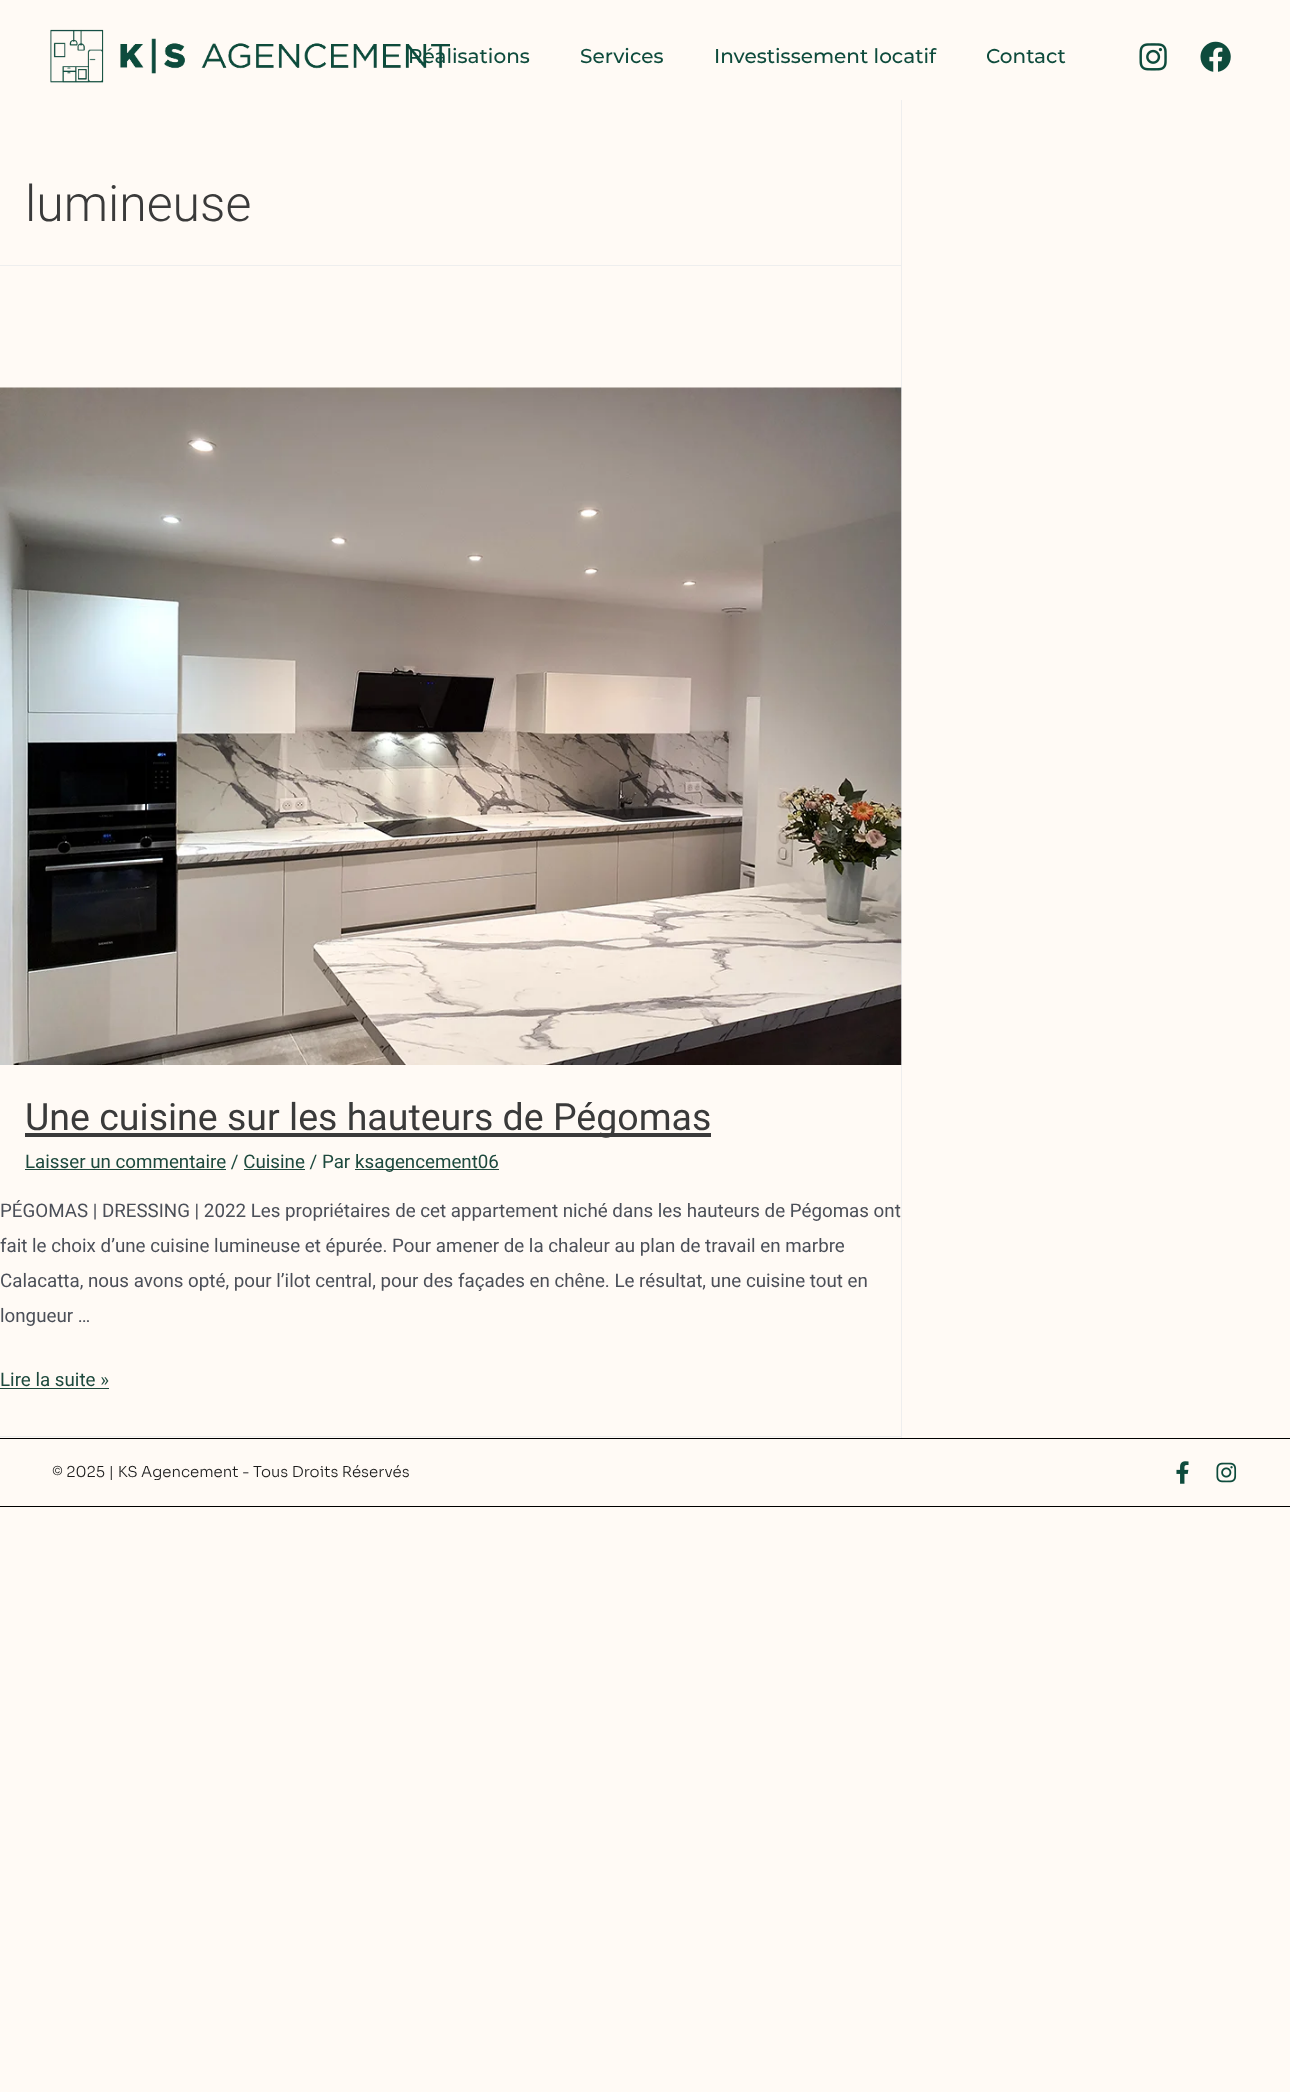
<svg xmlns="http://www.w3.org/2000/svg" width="1290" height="2092">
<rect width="100%" height="100%" fill="#fffaf5"/>
<image x="50" y="29" width="400" height="54" href="media/1.png"/>
<text x="408" y="63" style="font-family:Montserrat;font-size:20px;font-weight:500;fill:#0e4b3c">Réalisations</text>
<text x="580" y="63" style="font-family:Montserrat;font-size:20px;font-weight:500;fill:#0e4b3c">Services</text>
<text x="714" y="63" style="font-family:Montserrat;font-size:20px;font-weight:500;fill:#0e4b3c">Investissement locatif</text>
<text x="986" y="63" style="font-family:Montserrat;font-size:20px;font-weight:500;fill:#0e4b3c">Contact</text>
<image x="1139" y="43" width="28" height="28" href="media/2.png"/>
<image x="1200" y="41" width="31" height="31" href="media/3.png"/>
<rect x="901" y="100" width="1" height="1338" fill="#eee"/>
<rect y="265" width="901" height="1" fill="#eee"/>
<text x="25" y="221" style="font-family:Roboto;font-size:50px;font-weight:300;fill:#3a3a3a">lumineuse</text>
<rect y="1436" width="901" height="1" fill="#eee"/>
<image x="0" y="387" width="902" height="678" href="media/4.png"/>
<rect x="25" y="1133" width="686" height="4" fill="#3a3a3a"/>
<text x="25" y="1130" style="font-family:Roboto;font-size:37.5px;fill:#3a3a3a">Une cuisine sur les hauteurs de Pégomas</text>
<rect x="25" y="1169" width="201" height="1" fill="#1d493d"/>
<text x="25" y="1168" style="font-family:Roboto;font-size:18.75px;fill:#1d493d">Laisser un commentaire / Cuisine / Par</text>
<rect x="355" y="1169" width="144" height="1" fill="#1d493d"/>
<text x="355" y="1168" style="font-family:Roboto;font-size:18.75px;fill:#1d493d">ksagencement06</text>
<rect x="244" y="1169" width="61" height="1" fill="#1d493d"/>
<text x="0" y="1217" style="font-family:Roboto;font-size:18.75px;fill:#4b4f58">PÉGOMAS | DRESSING | 2022 Les propriétaires de cet appartement niché dans les hauteurs de Pégomas ont</text>
<text x="0" y="1252" style="font-family:Roboto;font-size:18.75px;fill:#4b4f58">fait le choix d’une cuisine lumineuse et épurée. Pour amener de la chaleur au plan de travail en marbre</text>
<text x="0" y="1287" style="font-family:Roboto;font-size:18.75px;fill:#4b4f58">Calacatta, nous avons opté, pour l’ilot central, pour des façades en chêne. Le résultat, une cuisine tout en</text>
<text x="0" y="1322" style="font-family:Roboto;font-size:18.75px;fill:#4b4f58">longueur …</text>
<text x="0" y="1386" style="font-family:Roboto;font-size:18.75px;fill:#1d493d">Lire la suite »</text>
<rect y="1388" width="109" height="1" fill="#1d493d"/>
<rect y="1438" width="1290" height="1" fill="#000"/>
<rect y="1506" width="1290" height="1" fill="#000"/>
<text x="52" y="1477" style="font-family:Sora;font-size:15px;font-weight:300;fill:#1c1c1c">© 2025 | KS Agencement - Tous Droits Réservés</text>
<image x="1176" y="1461" width="13" height="23" href="media/5.png"/>
<image x="1216" y="1462" width="21" height="21" href="media/6.png"/>
</svg>
